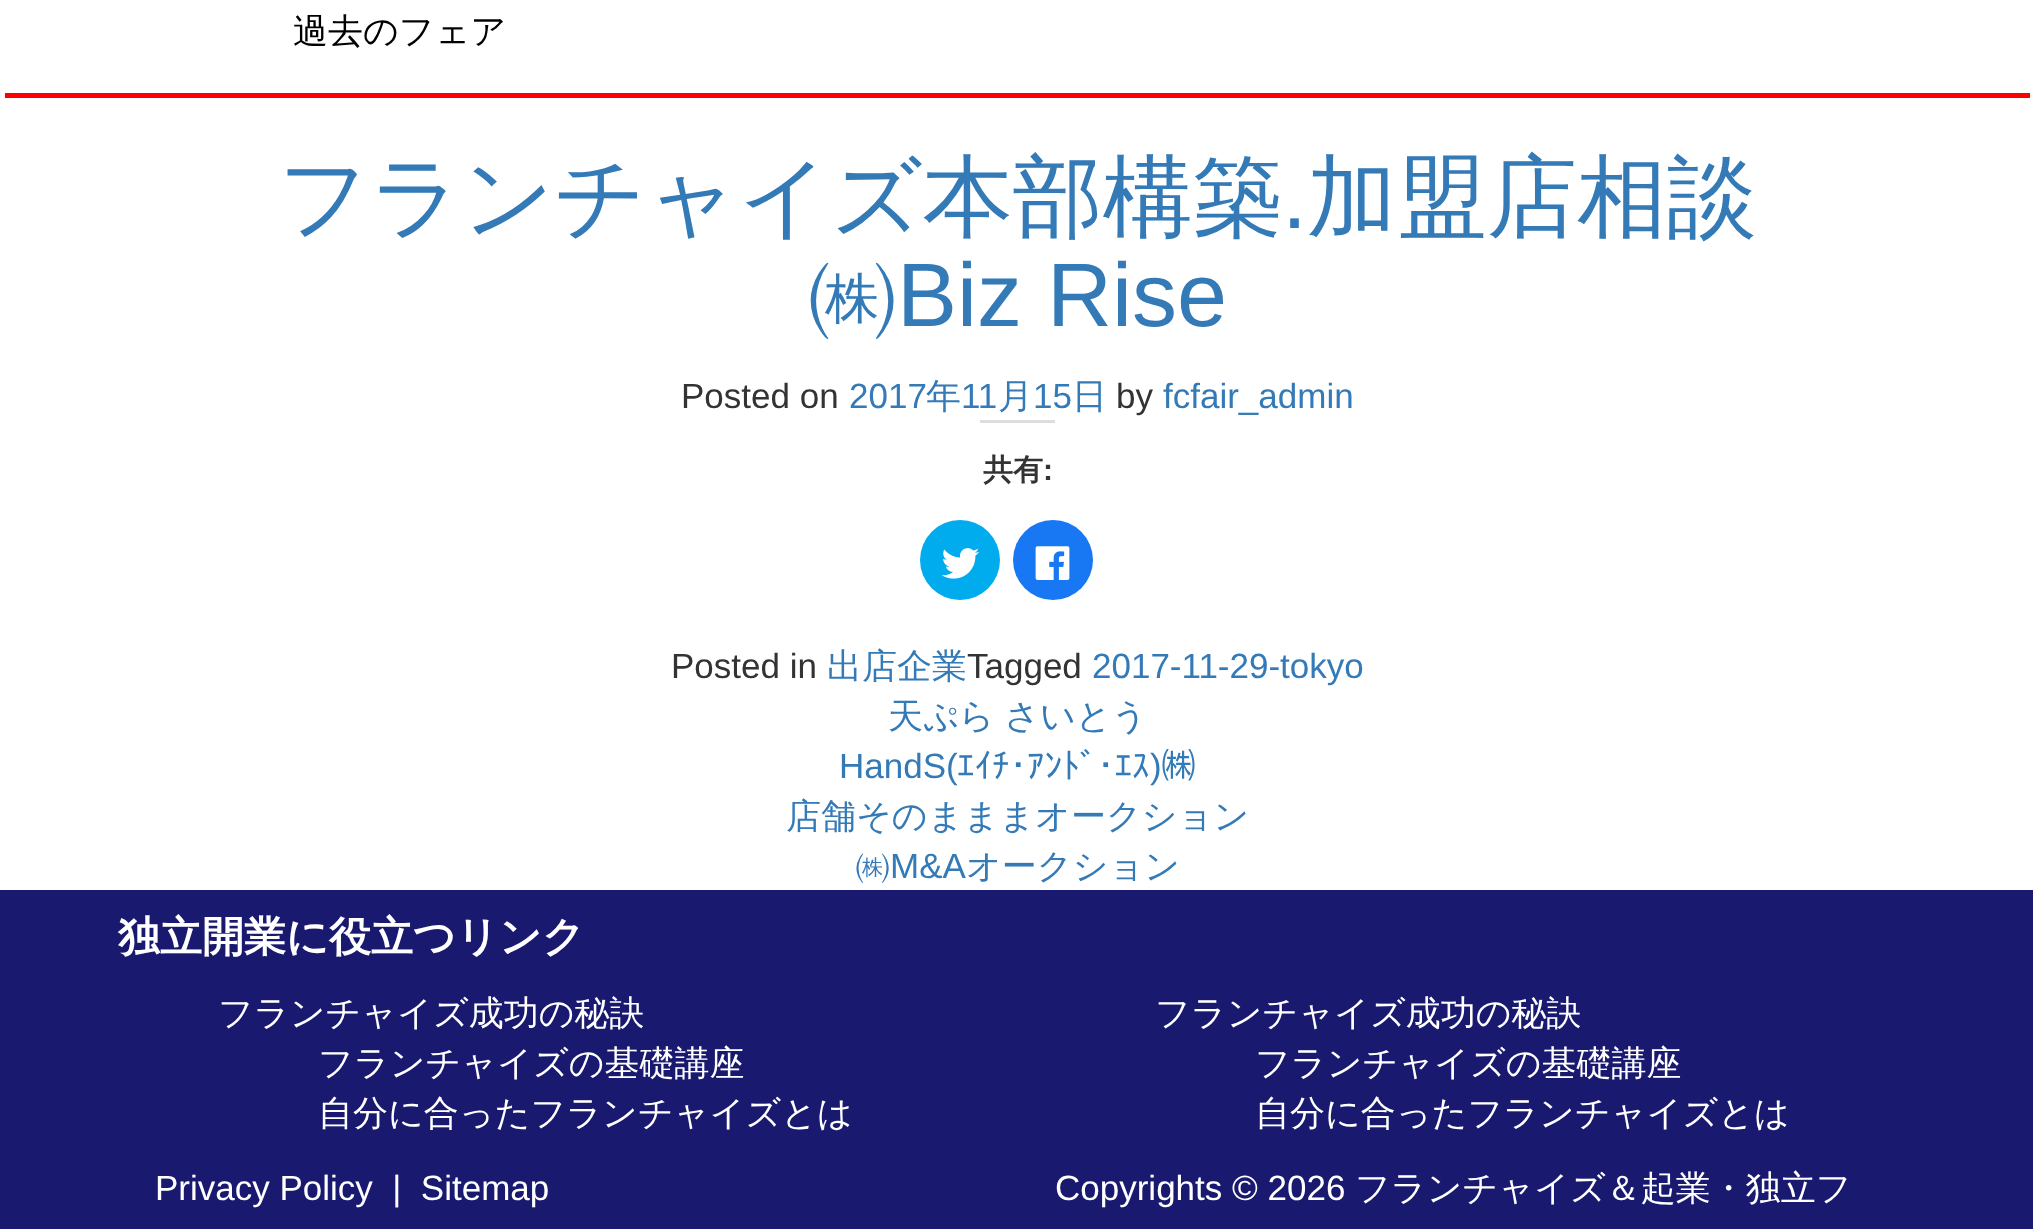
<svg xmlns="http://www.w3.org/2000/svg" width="2033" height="1229">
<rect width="100%" height="100%" fill="#fff"/>
<rect x="5" y="93" width="2025" height="5" fill="#f00"/>
<text x="293" y="43" style="font-family:WenQuanYi Zen Hei;font-size:35px;font-weight:500;fill:#000">過去のフェア</text>
<text x="278" y="228" style="font-family:WenQuanYi Zen Hei;font-size:90px;font-weight:500;fill:#337ab7">フランチャイズ本部構築</text>
<text x="1282" y="228" style="font-family:Liberation Sans;font-size:90px;fill:#337ab7">.</text>
<text x="1307" y="228" style="font-family:WenQuanYi Zen Hei;font-size:90px;font-weight:500;fill:#337ab7">加盟店相談</text>
<text x="807" y="326" style="font-family:WenQuanYi Zen Hei;font-size:90px;font-weight:500;fill:#337ab7">㈱</text>
<text x="897" y="326" style="font-family:Liberation Sans;font-size:90px;fill:#337ab7">Biz Rise</text>
<text x="681" y="408" style="font-family:Liberation Sans;font-size:35px;fill:#333">Posted on</text>
<text x="849" y="408" style="font-family:Liberation Sans;font-size:35px;fill:#337ab7">2017</text>
<text x="926" y="408" style="font-family:WenQuanYi Zen Hei;font-size:35px;font-weight:500;fill:#337ab7">年</text>
<text x="961" y="408" style="font-family:Liberation Sans;font-size:35px;fill:#337ab7">11</text>
<text x="998" y="408" style="font-family:WenQuanYi Zen Hei;font-size:35px;font-weight:500;fill:#337ab7">月</text>
<text x="1033" y="408" style="font-family:Liberation Sans;font-size:35px;fill:#337ab7">15</text>
<text x="1072" y="408" style="font-family:WenQuanYi Zen Hei;font-size:35px;font-weight:500;fill:#337ab7">日</text>
<text x="1116" y="408" style="font-family:Liberation Sans;font-size:35px;fill:#333">by</text>
<text x="1163" y="408" style="font-family:Liberation Sans;font-size:35px;fill:#337ab7">fcfair_admin</text>
<rect x="980" y="420" width="75" height="3" fill="#ddd"/>
<text x="983" y="480" style="font-family:WenQuanYi Zen Hei;font-size:30px;font-weight:bold;fill:#333">共有</text>
<text x="1043" y="480" style="font-family:Liberation Sans;font-size:30px;font-weight:bold;fill:#333">:</text>
<circle cx="960" cy="560" r="40" fill="#00acee"/>
<image x="941" y="548" width="38" height="31" href="media/1.png"/>
<circle cx="1053" cy="560" r="40" fill="#1877f2"/>
<image x="1035" y="546" width="35" height="34" href="media/2.png"/>
<text x="671" y="678" style="font-family:Liberation Sans;font-size:35px;fill:#333">Posted in</text>
<text x="827" y="678" style="font-family:WenQuanYi Zen Hei;font-size:35px;font-weight:500;fill:#337ab7">出店企業</text>
<text x="967" y="678" style="font-family:Liberation Sans;font-size:35px;fill:#333">Tagged</text>
<text x="1092" y="678" style="font-family:Liberation Sans;font-size:35px;fill:#337ab7">2017-11-29-tokyo</text>
<text x="888" y="728" word-spacing="-1" style="font-family:WenQuanYi Zen Hei;font-size:35px;font-weight:500;fill:#337ab7">天ぷら さいとう</text>
<text x="839" y="778" style="font-family:Liberation Sans;font-size:35px;fill:#337ab7">HandS(</text>
<text x="957" y="778" style="font-family:IPAPGothic;font-size:35px;fill:#337ab7">ｴｲﾁ･ｱﾝﾄﾞ･ｴｽ</text>
<text x="1150" y="778" style="font-family:Liberation Sans;font-size:35px;fill:#337ab7">)</text>
<text x="1161" y="778" style="font-family:IPAPGothic;font-size:35px;fill:#337ab7">㈱</text>
<text x="786" y="828" style="font-family:WenQuanYi Zen Hei;font-size:35px;font-weight:500;fill:#337ab7">店舗そのまままオークション</text>
<text x="855" y="878" style="font-family:WenQuanYi Zen Hei;font-size:35px;font-weight:500;fill:#337ab7">㈱</text>
<text x="890" y="878" style="font-family:Liberation Sans;font-size:35px;fill:#337ab7">M&amp;A</text>
<text x="966" y="878" style="font-family:WenQuanYi Zen Hei;font-size:35px;font-weight:500;fill:#337ab7">オークション</text>
<rect y="890" width="2033" height="339" fill="#191970"/>
<text x="118" y="951" style="font-family:WenQuanYi Zen Hei;font-size:42px;font-weight:bold;fill:#fff">独立開業に役立つリンク</text>
<text x="218" y="1025" style="font-family:WenQuanYi Zen Hei;font-size:35px;font-weight:500;fill:#fff">フランチャイズ成功の秘訣</text>
<text x="318" y="1075" style="font-family:WenQuanYi Zen Hei;font-size:35px;font-weight:500;fill:#fff">フランチャイズの基礎講座</text>
<text x="318" y="1125" style="font-family:WenQuanYi Zen Hei;font-size:35px;font-weight:500;fill:#fff">自分に合ったフランチャイズとは</text>
<text x="1155" y="1025" style="font-family:WenQuanYi Zen Hei;font-size:35px;font-weight:500;fill:#fff">フランチャイズ成功の秘訣</text>
<text x="1255" y="1075" style="font-family:WenQuanYi Zen Hei;font-size:35px;font-weight:500;fill:#fff">フランチャイズの基礎講座</text>
<text x="1255" y="1125" style="font-family:WenQuanYi Zen Hei;font-size:35px;font-weight:500;fill:#fff">自分に合ったフランチャイズとは</text>
<text x="155" y="1200" style="font-family:Liberation Sans;font-size:35px;fill:#fff" xml:space="preserve">Privacy Policy  |  Sitemap</text>
<text x="1055" y="1200" style="font-family:Liberation Sans;font-size:35px;fill:#fff">Copyrights © 2026</text>
<text x="1355" y="1200" style="font-family:WenQuanYi Zen Hei;font-size:35px;font-weight:500;fill:#fff">フランチャイズ＆起業・独立フ</text>
</svg>
